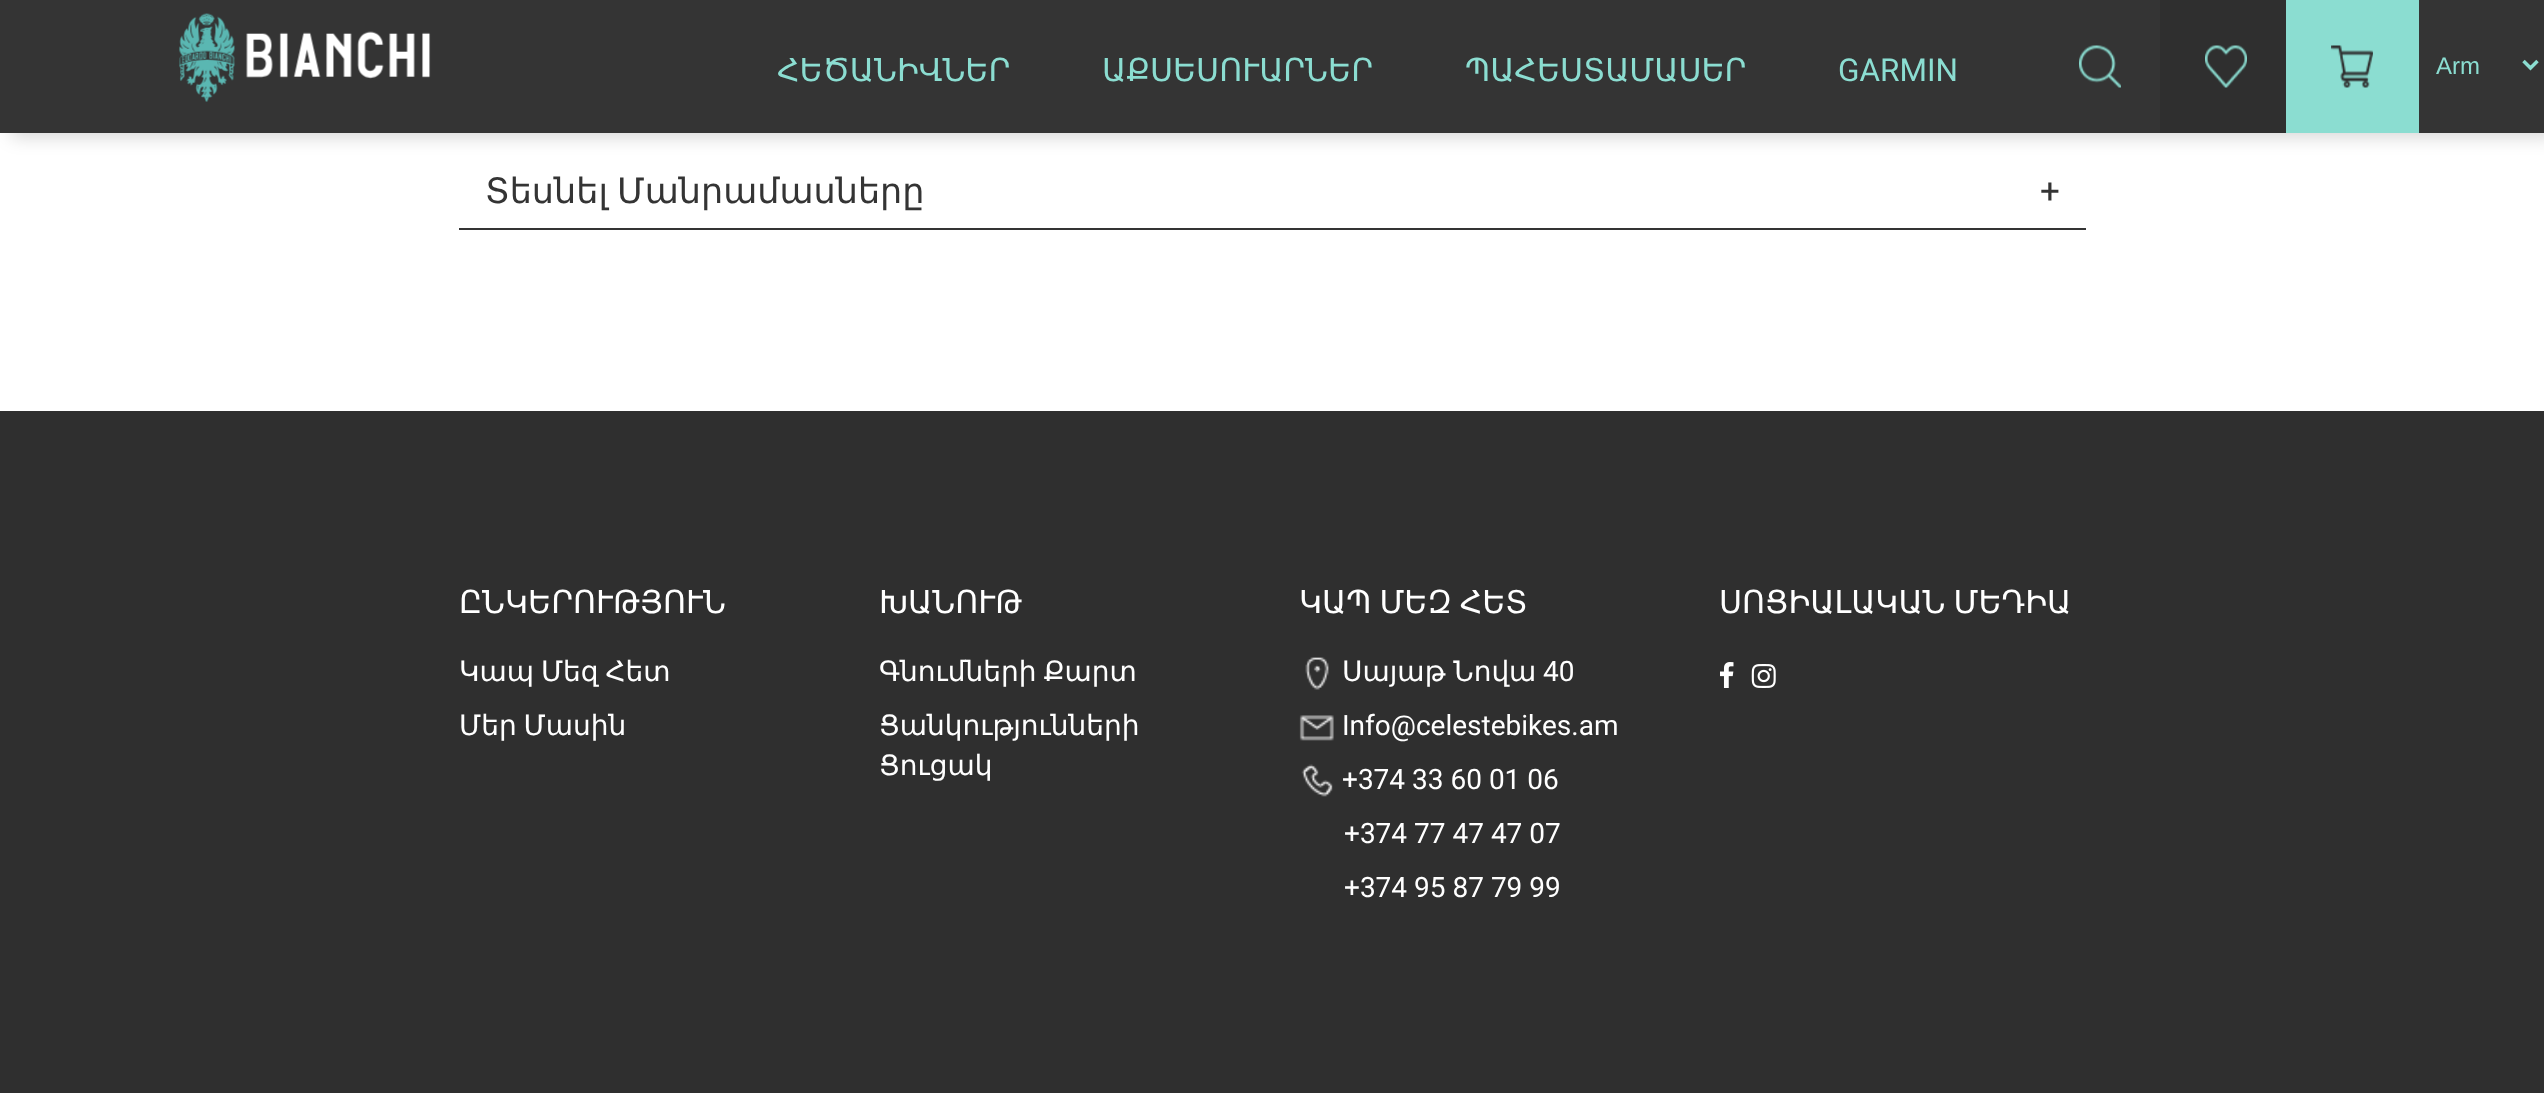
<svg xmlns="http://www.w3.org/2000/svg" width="2544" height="1093">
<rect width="100%" height="100%" fill="#fff"/>
<rect x="11" y="4" width="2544" height="133" fill="#00000029" filter="blur(9px)"/>
<rect width="2544" height="133" fill="#343434"/>
<image x="179" y="13" width="252" height="89" href="media/1.png"/>
<text x="777" y="81" style="font-family:DejaVu Sans;font-size:31.5px;fill:#8bddd1">ՀԵԾԱՆԻՎՆԵՐ</text>
<text x="1102" y="81" style="font-family:DejaVu Sans;font-size:31.5px;fill:#8bddd1">ԱՔՍԵՍՈՒԱՐՆԵՐ</text>
<text x="1465" y="81" style="font-family:DejaVu Sans;font-size:31.5px;fill:#8bddd1">ՊԱՀԵՍՏԱՄԱՍԵՐ</text>
<text x="1838" y="81" style="font-family:Roboto;font-size:31.5px;fill:#8bddd1">GARMIN</text>
<image x="2079" y="45" width="42" height="43" href="media/2.png"/>
<rect x="2160" width="126" height="133" fill="#2f2f2f"/>
<image x="2205" y="45" width="42" height="43" href="media/3.png"/>
<rect x="2286" width="133" height="133" fill="#8bddd1"/>
<image x="2331" y="45" width="42" height="43" href="media/4.png"/>
<path d="M2523.5 61l7 7l7-7" fill="none" stroke="#8bddd1" stroke-width="3.5"/>
<text x="2436" y="74" style="font-family:Liberation Sans;font-size:24px;fill:#8bddd1">Arm</text>
<rect x="459" y="228" width="1627" height="2" fill="#343434"/>
<text x="485" y="203" word-spacing="-2" style="font-family:DejaVu Sans;font-size:35px;fill:#343434">Տեսնել Մանրամասները</text>
<text x="2040" y="203" style="font-family:Roboto;font-size:35px;fill:#343434">+</text>
<rect y="411" width="2544" height="682" fill="#2f2f2f"/>
<text x="459" y="613" style="font-family:DejaVu Sans;font-size:31.5px;fill:#fff">ԸՆԿԵՐՈՒԹՅՈՒՆ</text>
<text x="459" y="681" word-spacing="-2" style="font-family:DejaVu Sans;font-size:28px;fill:#fff">Կապ Մեզ Հետ</text>
<text x="459" y="735" word-spacing="-2" style="font-family:DejaVu Sans;font-size:28px;fill:#fff">Մեր Մասին</text>
<text x="879" y="613" style="font-family:DejaVu Sans;font-size:31.5px;fill:#fff">ԽԱՆՈՒԹ</text>
<text x="879" y="681" word-spacing="-2" style="font-family:DejaVu Sans;font-size:28px;fill:#fff">Գնումների Քարտ</text>
<text x="879" y="735" style="font-family:DejaVu Sans;font-size:28px;fill:#fff">Ցանկությունների</text>
<text x="879" y="775" style="font-family:DejaVu Sans;font-size:28px;fill:#fff">Ցուցակ</text>
<text x="1299" y="613" word-spacing="-2" style="font-family:DejaVu Sans;font-size:31.5px;fill:#fff">ԿԱՊ ՄԵԶ ՀԵՏ</text>
<image x="1305" y="657" width="24" height="33" href="media/5.png"/>
<text x="1342" y="681" word-spacing="-1" style="font-family:DejaVu Sans;font-size:28px;fill:#fff">Սայաթ Նովա</text>
<text x="1543" y="681" style="font-family:Roboto;font-size:28px;fill:#fff">40</text>
<image x="1299" y="715" width="35" height="26" href="media/6.png"/>
<text x="1342" y="735" style="font-family:Roboto;font-size:28px;fill:#fff">Info@celestebikes.am</text>
<image x="1301" y="764" width="32" height="33" href="media/7.png"/>
<text x="1342" y="789" style="font-family:Roboto;font-size:28px;fill:#fff">+374 33 60 01 06</text>
<text x="1344" y="843" style="font-family:Roboto;font-size:28px;fill:#fff">+374 77 47 47 07</text>
<text x="1344" y="897" style="font-family:Roboto;font-size:28px;fill:#fff">+374 95 87 79 99</text>
<text x="1719" y="613" word-spacing="-2" style="font-family:DejaVu Sans;font-size:31.5px;fill:#fff">ՍՈՑԻԱԼԱԿԱՆ ՄԵԴԻԱ</text>
<image x="1720" y="662" width="14" height="26" href="media/8.png"/>
<image x="1751" y="664" width="25" height="24" href="media/9.png"/>
</svg>
